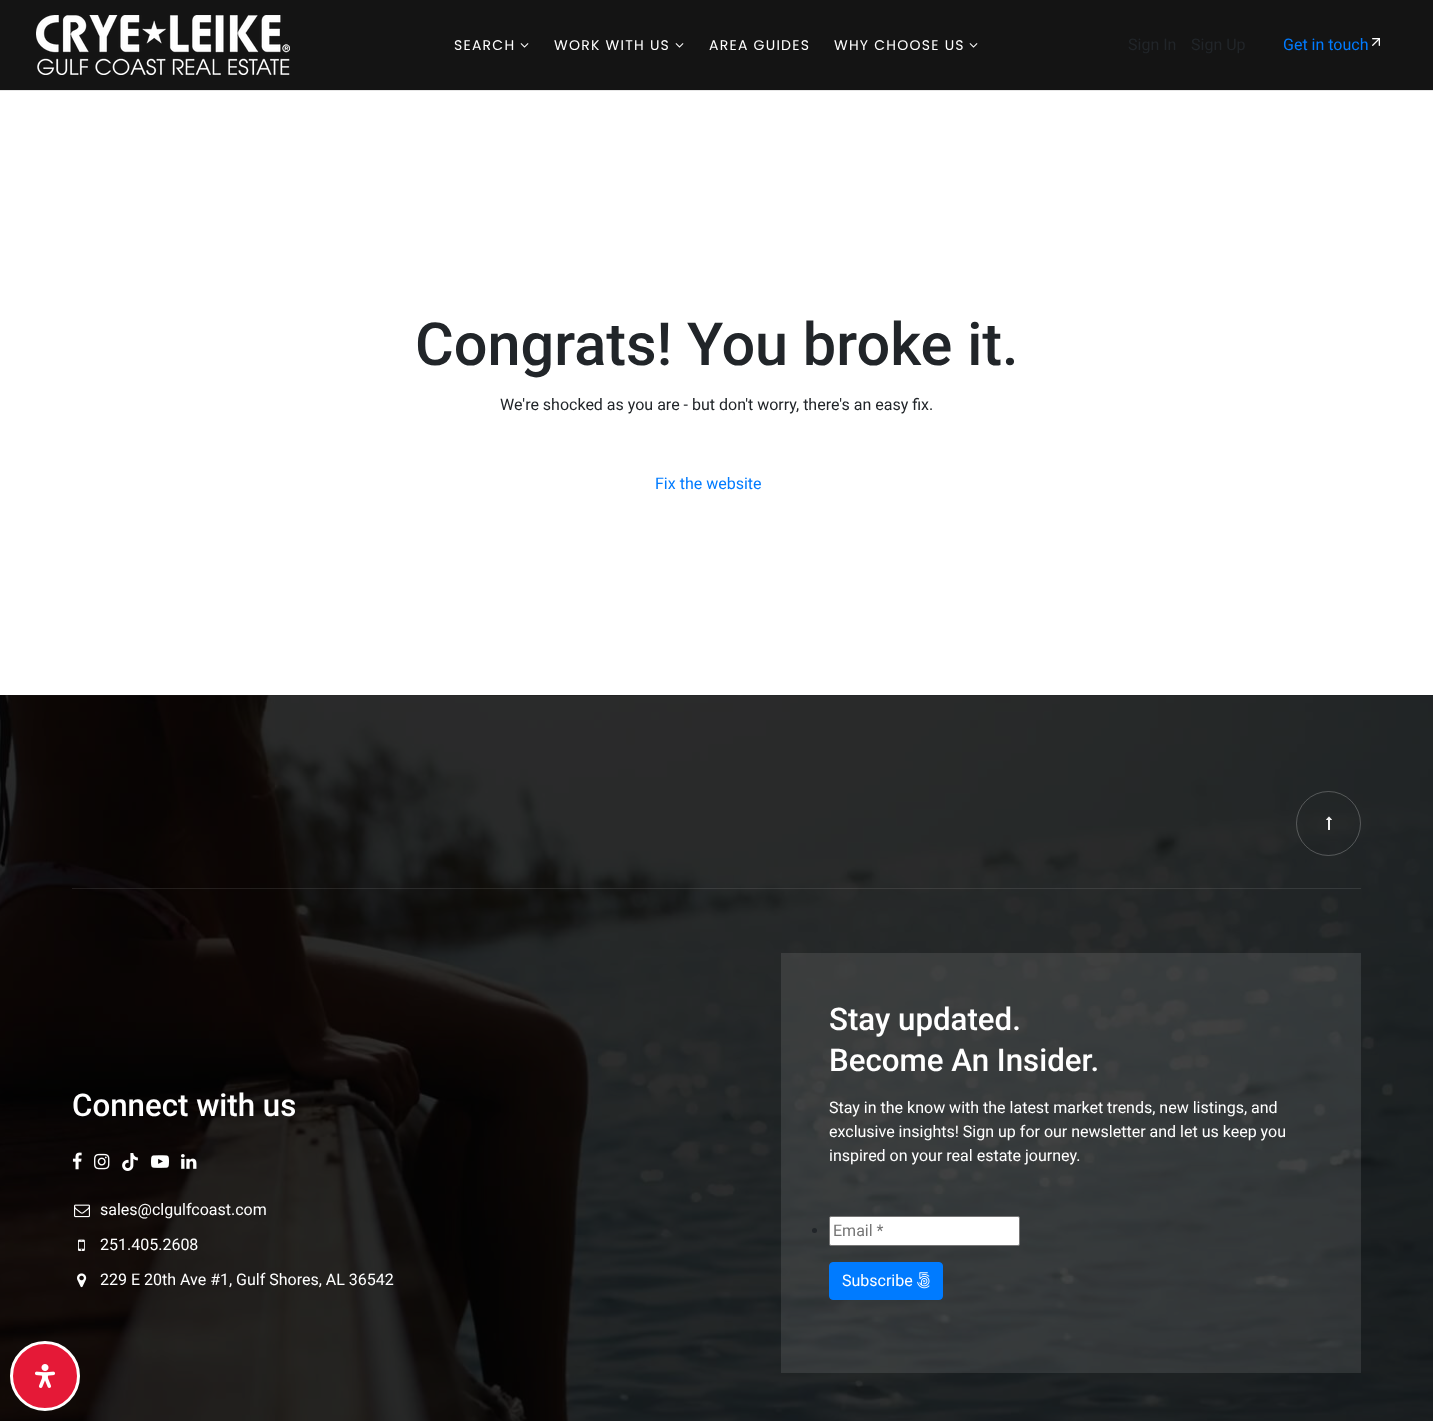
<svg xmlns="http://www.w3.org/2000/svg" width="1433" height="1421">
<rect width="100%" height="100%" fill="#fff"/>
<rect y="90" width="1433" height="1" fill="#e6e6e6"/>
<rect width="1433" height="90" fill="#141414"/>
<image x="36" y="15" width="254" height="60" href="media/1.png"/>
<text x="454" y="50" style="font-family:Poppins;font-size:14px;letter-spacing:1.25px;fill:#fff">SEARCH</text>
<image x="520" y="43" width="9" height="5" href="media/2.png"/>
<text x="554" y="50" style="font-family:Poppins;font-size:14px;letter-spacing:1.25px;fill:#fff">WORK WITH US</text>
<image x="675" y="43" width="9" height="5" href="media/2.png"/>
<text x="709" y="50" style="font-family:Poppins;font-size:14px;letter-spacing:1.25px;fill:#fff">AREA GUIDES</text>
<text x="834" y="50" style="font-family:Poppins;font-size:14px;letter-spacing:1.25px;fill:#fff">WHY CHOOSE US</text>
<image x="969" y="43" width="9" height="5" href="media/2.png"/>
<text x="1128" y="50" style="font-family:Roboto;font-size:16px;fill:#212529">Sign In</text>
<text x="1191" y="50" style="font-family:Roboto;font-size:16px;fill:#212529">Sign Up</text>
<text x="1283" y="50" style="font-family:Roboto;font-size:16px;fill:#007bff">Get in touch</text>
<image x="1372" y="38" width="8" height="8" href="media/3.png"/>
<text x="415" y="365" style="font-family:Roboto;font-size:59.4px;font-weight:500;fill:#212529">Congrats! You broke it.</text>
<text x="500" y="410" style="font-family:Roboto;font-size:16px;fill:#212529">We're shocked as you are - but don't worry, there's an easy fix.</text>
<text x="655" y="489" style="font-family:Roboto;font-size:16px;fill:#007bff">Fix the website</text>
<image x="0" y="695" width="1433" height="726" href="media/4.png"/>
<rect x="72" y="888" width="1289" height="1" fill="#ffffff1a"/>
<circle cx="1328.5" cy="823.5" r="32" fill="none" stroke="#f3f3f340"/>
<image x="1326" y="816" width="6" height="14" href="media/5.png"/>
<text x="72" y="1116" style="font-family:Roboto;font-size:31.25px;font-weight:500;fill:#fff">Connect with us</text>
<image x="72" y="1152" width="10" height="18" href="media/6.png"/>
<image x="94" y="1153" width="16" height="17" href="media/7.png"/>
<image x="122" y="1153" width="16" height="18" href="media/8.png"/>
<image x="151" y="1155" width="18" height="13" href="media/9.png"/>
<image x="181" y="1154" width="16" height="15" href="media/10.png"/>
<image x="74" y="1204" width="16" height="14" href="media/11.png"/>
<text x="100" y="1215" style="font-family:Roboto;font-size:16px;fill:#fff">sales@clgulfcoast.com</text>
<image x="78" y="1239" width="7" height="12" href="media/12.png"/>
<text x="100" y="1250" style="font-family:Roboto;font-size:16px;fill:#fff">251.405.2608</text>
<image x="77" y="1273" width="10" height="15" href="media/13.png"/>
<text x="100" y="1285" style="font-family:Roboto;font-size:16px;fill:#fff">229 E 20th Ave #1, Gulf Shores, AL 36542</text>
<rect x="781" y="953" width="580" height="420" fill="#ffffff1a"/>
<text x="829" y="1030" style="font-family:Roboto;font-size:31.25px;font-weight:500;fill:#fff">Stay updated.</text>
<text x="829" y="1071" style="font-family:Roboto;font-size:31.25px;font-weight:500;fill:#fff">Become An Insider.</text>
<text x="829" y="1113" style="font-family:Roboto;font-size:16px;fill:#fff">Stay in the know with the latest market trends, new listings, and</text>
<text x="829" y="1137" style="font-family:Roboto;font-size:16px;fill:#fff">exclusive insights! Sign up for our newsletter and let us keep you</text>
<text x="829" y="1161" style="font-family:Roboto;font-size:16px;fill:#fff">inspired on your real estate journey.</text>
<circle cx="814.5" cy="1230.5" r="2.5" fill="#212529"/>
<rect x="829.5" y="1216.5" width="190" height="29" rx="1.5" fill="#fff" stroke="#767676"/>
<text x="833" y="1236" style="font-family:Roboto;font-size:16px;fill:#757575">Email *</text>
<rect x="829.5" y="1262.5" width="113" height="37" rx="3.5" fill="#007bff" stroke="#007bff"/>
<text x="842" y="1286" style="font-family:Roboto;font-size:16px;fill:#fff">Subscribe</text>
<image x="917" y="1272" width="13" height="17" href="media/14.png"/>
<circle cx="45" cy="1376" r="33.5" fill="#e51937" stroke="#fff" stroke-width="3"/>
<image x="35" y="1364" width="20" height="24" href="media/15.png"/>
</svg>
